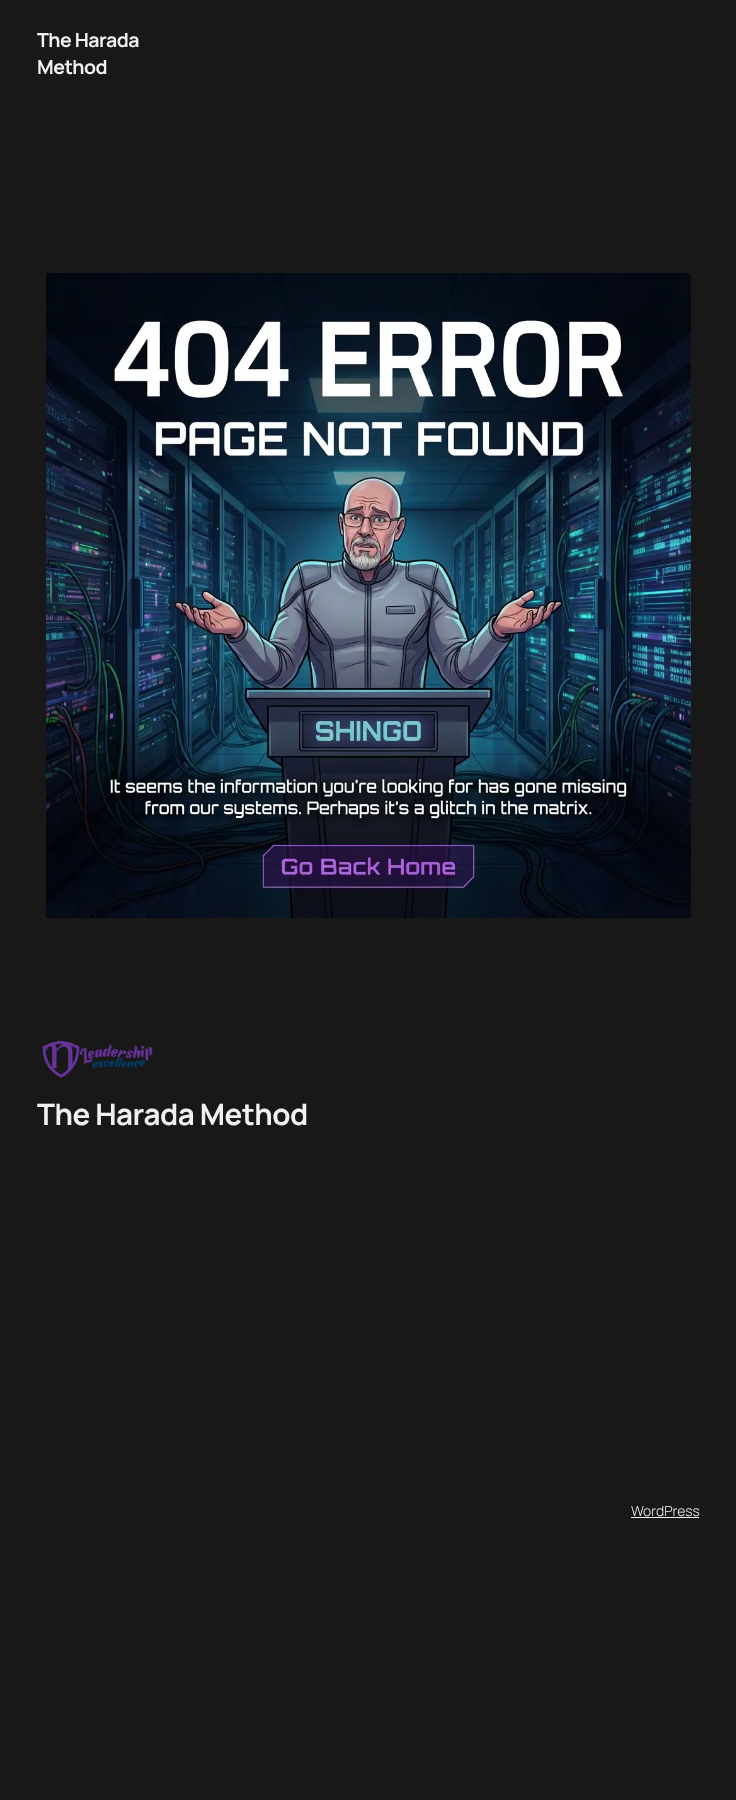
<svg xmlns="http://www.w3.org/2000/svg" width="736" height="1800">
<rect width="100%" height="100%" fill="#181818"/>
<text x="37" y="47" style="font-family:Manrope;font-size:19.5px;font-weight:bold;letter-spacing:-0.5px;fill:#f0f0f0">The Harada</text>
<text x="37" y="74" style="font-family:Manrope;font-size:19.5px;font-weight:bold;letter-spacing:-0.5px;fill:#f0f0f0">Method</text>
<image x="46" y="273" width="645" height="645" href="media/1.png"/>
<image x="42" y="1041" width="111" height="37" href="media/2.png"/>
<text x="37" y="1125" style="font-family:Manrope;font-size:29.6px;font-weight:bold;letter-spacing:-0.5px;fill:#f0f0f0">The Harada Method</text>
<text x="631" y="1516" style="font-family:Manrope;font-size:14px;font-weight:300;fill:#f0f0f0">WordPress</text>
<rect x="631" y="1517" width="68" height="1" fill="#f0f0f0"/>
</svg>
